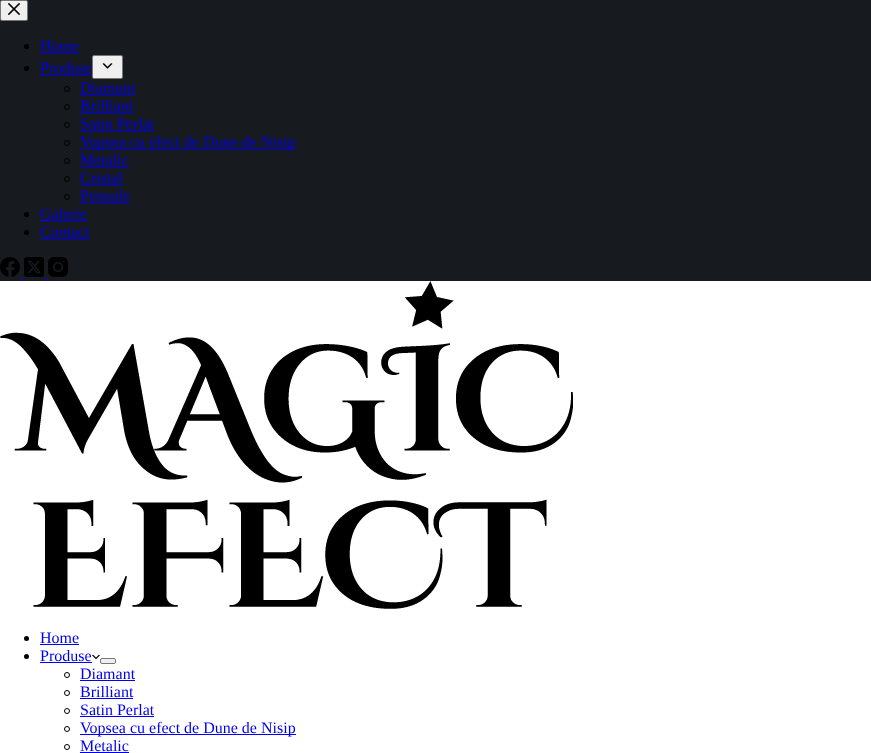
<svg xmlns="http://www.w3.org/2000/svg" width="871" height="753">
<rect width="100%" height="100%" fill="#171a1e"/>
<rect x="0.5" y="0.5" width="27" height="20" rx="1.5" fill="#efefef" stroke="#767676"/>
<image x="8" y="3" width="12" height="12" href="media/1.png"/>
<circle cx="26.5" cy="46.5" r="2.5" fill="#000"/>
<text x="40" y="51" style="font-family:Liberation Serif;font-size:16px;fill:#00e">Home</text>
<rect x="40" y="52" width="39" height="1" fill="#00e"/>
<circle cx="26.5" cy="68.5" r="2.5" fill="#000"/>
<text x="40" y="73" style="font-family:Liberation Serif;font-size:16px;fill:#00e">Produse</text>
<rect x="40" y="74" width="52" height="1" fill="#00e"/>
<rect x="92.5" y="55.5" width="30" height="23" rx="1.5" fill="#efefef" stroke="#767676"/>
<image x="102" y="63" width="11" height="6" href="media/2.png"/>
<circle cx="67" cy="89" r="2.5" fill="none" stroke="#000"/>
<text x="80" y="93" style="font-family:Liberation Serif;font-size:16px;fill:#00e">Diamant</text>
<rect x="80" y="94" width="55" height="1" fill="#00e"/>
<circle cx="67" cy="107" r="2.5" fill="none" stroke="#000"/>
<text x="80" y="111" style="font-family:Liberation Serif;font-size:16px;fill:#00e">Brilliant</text>
<rect x="80" y="112" width="53" height="1" fill="#00e"/>
<circle cx="67" cy="125" r="2.5" fill="none" stroke="#000"/>
<text x="80" y="129" style="font-family:Liberation Serif;font-size:16px;fill:#00e">Satin Perlat</text>
<rect x="80" y="130" width="74" height="1" fill="#00e"/>
<circle cx="67" cy="143" r="2.5" fill="none" stroke="#000"/>
<rect x="80" y="148" width="216" height="1" fill="#00e"/>
<text x="80" y="147" style="font-family:Liberation Serif;font-size:16px;fill:#00e">Vopsea cu efect de Dune de Nisip</text>
<circle cx="67" cy="161" r="2.5" fill="none" stroke="#000"/>
<text x="80" y="165" style="font-family:Liberation Serif;font-size:16px;fill:#00e">Metalic</text>
<rect x="80" y="166" width="49" height="1" fill="#00e"/>
<circle cx="67" cy="179" r="2.5" fill="none" stroke="#000"/>
<text x="80" y="183" style="font-family:Liberation Serif;font-size:16px;fill:#00e">Cristal</text>
<rect x="80" y="184" width="43" height="1" fill="#00e"/>
<circle cx="67" cy="197" r="2.5" fill="none" stroke="#000"/>
<text x="80" y="201" style="font-family:Liberation Serif;font-size:16px;fill:#00e">Pensule</text>
<rect x="80" y="202" width="50" height="1" fill="#00e"/>
<circle cx="26.5" cy="214.5" r="2.5" fill="#000"/>
<text x="40" y="219" style="font-family:Liberation Serif;font-size:16px;fill:#00e">Galerie</text>
<rect x="40" y="220" width="47" height="1" fill="#00e"/>
<circle cx="26.5" cy="232.5" r="2.5" fill="#000"/>
<text x="40" y="237" style="font-family:Liberation Serif;font-size:16px;fill:#00e">Contact</text>
<rect x="40" y="238" width="50" height="1" fill="#00e"/>
<image x="0" y="257" width="20" height="20" href="media/3.png"/>
<image x="24" y="257" width="20" height="20" href="media/4.png"/>
<image x="48" y="257" width="20" height="20" href="media/5.png"/>
<rect x="20" y="278" width="4" height="1" fill="#00e"/>
<rect x="44" y="278" width="4" height="1" fill="#00e"/>
<rect y="281" width="871" height="472" fill="#fff"/>
<image x="0" y="281" width="573" height="328" href="media/6.png"/>
<circle cx="26.5" cy="638.5" r="2.5" fill="#000"/>
<text x="40" y="643" style="font-family:Liberation Serif;font-size:16px;fill:#00e">Home</text>
<rect x="40" y="644" width="39" height="1" fill="#00e"/>
<circle cx="26.5" cy="656.5" r="2.5" fill="#000"/>
<text x="40" y="661" style="font-family:Liberation Serif;font-size:16px;fill:#00e">Produse</text>
<rect x="40" y="662" width="52" height="1" fill="#00e"/>
<image x="92" y="654" width="8" height="6" href="media/7.png"/>
<rect x="100.5" y="658.5" width="15" height="5" rx="1.5" fill="#efefef" stroke="#767676"/>
<circle cx="67" cy="675" r="2.5" fill="none" stroke="#000"/>
<text x="80" y="679" style="font-family:Liberation Serif;font-size:16px;fill:#00e">Diamant</text>
<rect x="80" y="680" width="55" height="1" fill="#00e"/>
<circle cx="67" cy="693" r="2.5" fill="none" stroke="#000"/>
<text x="80" y="697" style="font-family:Liberation Serif;font-size:16px;fill:#00e">Brilliant</text>
<rect x="80" y="698" width="53" height="1" fill="#00e"/>
<circle cx="67" cy="711" r="2.5" fill="none" stroke="#000"/>
<text x="80" y="715" style="font-family:Liberation Serif;font-size:16px;fill:#00e">Satin Perlat</text>
<rect x="80" y="716" width="74" height="1" fill="#00e"/>
<circle cx="67" cy="729" r="2.5" fill="none" stroke="#000"/>
<rect x="80" y="734" width="216" height="1" fill="#00e"/>
<text x="80" y="733" style="font-family:Liberation Serif;font-size:16px;fill:#00e">Vopsea cu efect de Dune de Nisip</text>
<circle cx="67" cy="747" r="2.5" fill="none" stroke="#000"/>
<text x="80" y="751" style="font-family:Liberation Serif;font-size:16px;fill:#00e">Metalic</text>
<rect x="80" y="752" width="49" height="1" fill="#00e"/>
</svg>
